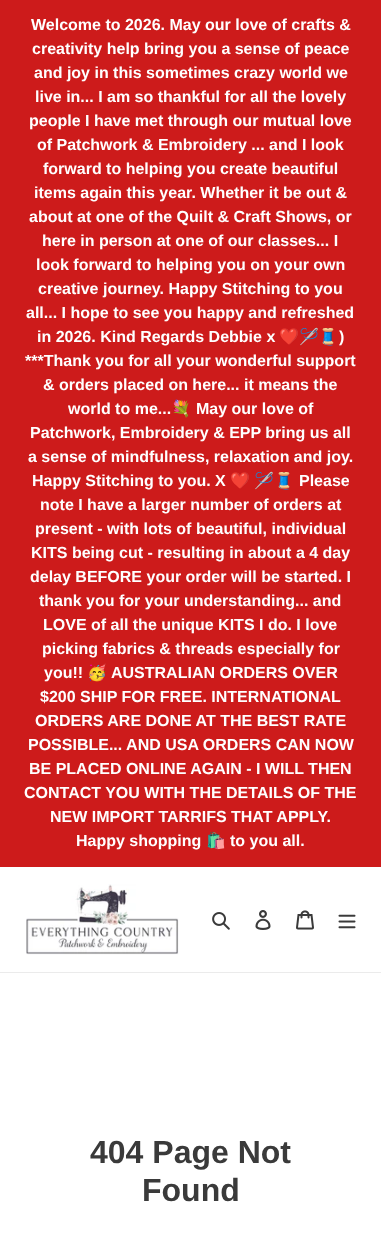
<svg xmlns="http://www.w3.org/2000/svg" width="381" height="1234">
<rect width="100%" height="100%" fill="#fff"/>
<rect width="381" height="867" fill="#cd1b1b"/>
<text x="31" y="30" style="font-family:Liberation Sans;font-size:16px;font-weight:bold;fill:#fff">Welcome to 2026. May our love of crafts &amp;</text>
<text x="32" y="54" style="font-family:Liberation Sans;font-size:16px;font-weight:bold;fill:#fff">creativity help bring you a sense of peace</text>
<text x="34" y="78" style="font-family:Liberation Sans;font-size:16px;font-weight:bold;fill:#fff">and joy in this sometimes crazy world we</text>
<text x="35" y="102" style="font-family:Liberation Sans;font-size:16px;font-weight:bold;fill:#fff">live in... I am so thankful for all the lovely</text>
<text x="29" y="126" style="font-family:Liberation Sans;font-size:16px;font-weight:bold;fill:#fff">people I have met through our mutual love</text>
<text x="37" y="150" style="font-family:Liberation Sans;font-size:16px;font-weight:bold;fill:#fff">of Patchwork &amp; Embroidery ... and I look</text>
<text x="43" y="174" style="font-family:Liberation Sans;font-size:16px;font-weight:bold;fill:#fff">forward to helping you create beautiful</text>
<text x="34" y="198" style="font-family:Liberation Sans;font-size:16px;font-weight:bold;fill:#fff">items again this year. Whether it be out &amp;</text>
<text x="29" y="222" style="font-family:Liberation Sans;font-size:16px;font-weight:bold;fill:#fff">about at one of the Quilt &amp; Craft Shows, or</text>
<text x="42" y="246" style="font-family:Liberation Sans;font-size:16px;font-weight:bold;fill:#fff">here in person at one of our classes... I</text>
<text x="36" y="270" style="font-family:Liberation Sans;font-size:16px;font-weight:bold;fill:#fff">look forward to helping you on your own</text>
<text x="38" y="294" style="font-family:Liberation Sans;font-size:16px;font-weight:bold;fill:#fff">creative journey. Happy Stitching to you</text>
<text x="26" y="318" style="font-family:Liberation Sans;font-size:16px;font-weight:bold;fill:#fff">all... I hope to see you happy and refreshed</text>
<text x="37" y="342" style="font-family:Liberation Sans;font-size:16px;font-weight:bold;fill:#fff">in 2026. Kind Regards Debbie x</text>
<text x="279" y="342" style="font-family:Noto Color Emoji;font-size:16px;font-weight:bold;fill:#fff">❤️🪡🧵</text>
<text x="339" y="342" style="font-family:Liberation Sans;font-size:16px;font-weight:bold;fill:#fff">)</text>
<text x="25" y="366" style="font-family:Liberation Sans;font-size:16px;font-weight:bold;fill:#fff">***Thank you for all your wonderful support</text>
<text x="43" y="390" style="font-family:Liberation Sans;font-size:16px;font-weight:bold;fill:#fff">&amp; orders placed on here... it means the</text>
<text x="68" y="414" style="font-family:Liberation Sans;font-size:16px;font-weight:bold;fill:#fff">world to me...</text>
<text x="171" y="414" style="font-family:Noto Color Emoji;font-size:16px;font-weight:bold;fill:#fff">💐</text>
<text x="196" y="414" style="font-family:Liberation Sans;font-size:16px;font-weight:bold;fill:#fff">May our love of</text>
<text x="30" y="438" style="font-family:Liberation Sans;font-size:16px;font-weight:bold;fill:#fff">Patchwork, Embroidery &amp; EPP bring us all</text>
<text x="28" y="462" style="font-family:Liberation Sans;font-size:16px;font-weight:bold;fill:#fff">a sense of mindfulness, relaxation and joy.</text>
<text x="32" y="486" style="font-family:Liberation Sans;font-size:16px;font-weight:bold;fill:#fff">Happy Stitching to you. X</text>
<text x="230" y="486" style="font-family:Noto Color Emoji;font-size:16px;font-weight:bold;fill:#fff">❤️</text>
<text x="254" y="486" style="font-family:Noto Color Emoji;font-size:16px;font-weight:bold;fill:#fff">🪡🧵</text>
<text x="299" y="486" style="font-family:Liberation Sans;font-size:16px;font-weight:bold;fill:#fff">Please</text>
<text x="40" y="510" style="font-family:Liberation Sans;font-size:16px;font-weight:bold;fill:#fff">note I have a larger number of orders at</text>
<text x="35" y="534" style="font-family:Liberation Sans;font-size:16px;font-weight:bold;fill:#fff">present - with lots of beautiful, individual</text>
<text x="31" y="558" style="font-family:Liberation Sans;font-size:16px;font-weight:bold;fill:#fff">KITS being cut - resulting in about a 4 day</text>
<text x="30" y="582" style="font-family:Liberation Sans;font-size:16px;font-weight:bold;fill:#fff">delay BEFORE your order will be started. I</text>
<text x="39" y="606" style="font-family:Liberation Sans;font-size:16px;font-weight:bold;fill:#fff">thank you for your understanding... and</text>
<text x="43" y="630" style="font-family:Liberation Sans;font-size:16px;font-weight:bold;fill:#fff">LOVE of all the unique KITS I do. I love</text>
<text x="42" y="654" style="font-family:Liberation Sans;font-size:16px;font-weight:bold;fill:#fff">picking fabrics &amp; threads especially for</text>
<text x="44" y="678" style="font-family:Liberation Sans;font-size:16px;font-weight:bold;fill:#fff">you!!</text>
<text x="87" y="678" style="font-family:Noto Color Emoji;font-size:16px;font-weight:bold;fill:#fff">🥳</text>
<text x="111" y="678" style="font-family:Liberation Sans;font-size:16px;font-weight:bold;fill:#fff">AUSTRALIAN ORDERS OVER</text>
<text x="40" y="702" style="font-family:Liberation Sans;font-size:16px;font-weight:bold;fill:#fff">$200 SHIP FOR FREE. INTERNATIONAL</text>
<text x="35" y="726" style="font-family:Liberation Sans;font-size:16px;font-weight:bold;fill:#fff">ORDERS ARE DONE AT THE BEST RATE</text>
<text x="28" y="750" style="font-family:Liberation Sans;font-size:16px;font-weight:bold;fill:#fff">POSSIBLE... AND USA ORDERS CAN NOW</text>
<text x="29" y="774" style="font-family:Liberation Sans;font-size:16px;font-weight:bold;fill:#fff">BE PLACED ONLINE AGAIN - I WILL THEN</text>
<text x="24" y="798" style="font-family:Liberation Sans;font-size:16px;font-weight:bold;fill:#fff">CONTACT YOU WITH THE DETAILS OF THE</text>
<text x="50" y="822" style="font-family:Liberation Sans;font-size:16px;font-weight:bold;fill:#fff">NEW IMPORT TARRIFS THAT APPLY.</text>
<text x="76" y="846" style="font-family:Liberation Sans;font-size:16px;font-weight:bold;fill:#fff">Happy shopping</text>
<text x="206" y="846" style="font-family:Noto Color Emoji;font-size:16px;font-weight:bold;fill:#fff">🛍</text>
<text x="230" y="846" style="font-family:Liberation Sans;font-size:16px;font-weight:bold;fill:#fff">to you all.</text>
<rect y="972" width="381" height="1" fill="#ebebeb"/>
<image x="26" y="884" width="153" height="71" href="media/1.png"/>
<image x="212" y="912" width="18" height="18" href="media/2.png"/>
<image x="255" y="910" width="16" height="20" href="media/3.png"/>
<image x="296" y="910" width="18" height="20" href="media/4.png"/>
<image x="338" y="914" width="18" height="15" href="media/5.png"/>
<text x="90" y="1163" style="font-family:Liberation Sans;font-size:32px;font-weight:bold;fill:#3a3a3a">404 Page Not</text>
<text x="142" y="1201" style="font-family:Liberation Sans;font-size:32px;font-weight:bold;fill:#3a3a3a">Found</text>
</svg>
